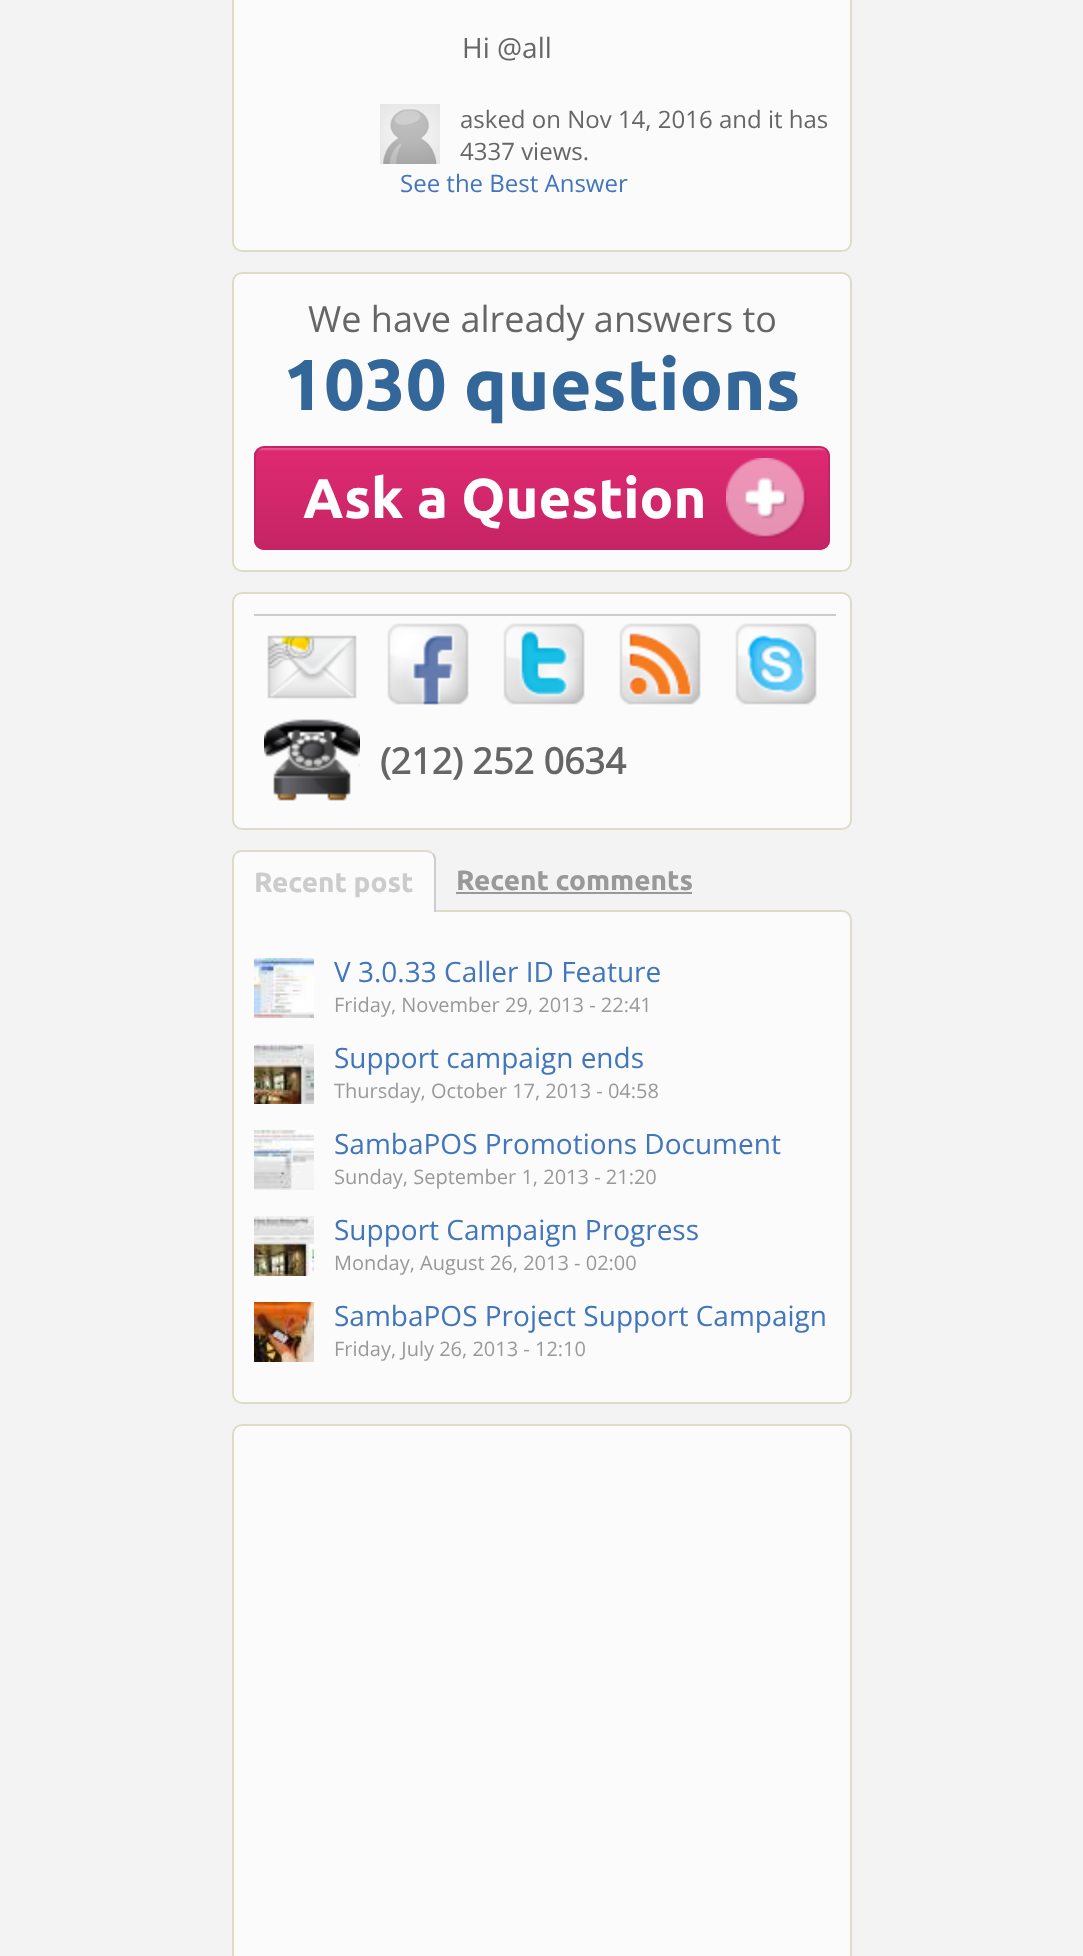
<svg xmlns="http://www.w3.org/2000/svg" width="1083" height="1956">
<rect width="100%" height="100%" fill="#f3f3f3"/>
<rect x="233" y="-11" width="618" height="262" rx="9" fill="#fbfbfb" stroke="#dedcc7" stroke-width="2"/>
<text x="462" y="58" style="font-family:Open Sans;font-size:28px;fill:#666">Hi @all</text>
<image x="380" y="104" width="60" height="60" href="media/1.png"/>
<text x="460" y="128" style="font-family:Open Sans;font-size:24px;fill:#666">asked on Nov 14, 2016 and it has</text>
<text x="460" y="160" style="font-family:Open Sans;font-size:24px;fill:#666">4337 views.</text>
<text x="400" y="192" style="font-family:Open Sans;font-size:24px;fill:#4175bc">See the Best Answer</text>
<rect x="233" y="273" width="618" height="298" rx="9" fill="#fbfbfb" stroke="#dedcc7" stroke-width="2"/>
<text x="308" y="332" style="font-family:Open Sans;font-size:36px;fill:#666">We have already answers to</text>
<text x="283" y="410" style="font-family:Ubuntu;font-size:72px;font-weight:bold;fill:#369">1030 questions</text>
<image x="254" y="448" width="576" height="102" href="media/2.png"/>
<rect x="255" y="447" width="574" height="102" rx="9" fill="none" stroke="#c32464" stroke-width="2"/>
<image x="726" y="458" width="81" height="80" href="media/3.png"/>
<text x="303" y="518" style="font-family:Ubuntu;font-size:56px;font-weight:bold;fill:#fff">Ask a Question</text>
<rect x="233" y="593" width="618" height="236" rx="9" fill="#fbfbfb" stroke="#dedcc7" stroke-width="2"/>
<rect x="254" y="614" width="582" height="2" fill="#ccc"/>
<image x="267" y="635" width="90" height="64" href="media/4.png"/>
<image x="387" y="623" width="82" height="82" href="media/5.png"/>
<image x="503" y="623" width="82" height="82" href="media/6.png"/>
<image x="619" y="623" width="82" height="82" href="media/7.png"/>
<image x="735" y="623" width="82" height="82" href="media/8.png"/>
<image x="264" y="719" width="96" height="82" href="media/9.png"/>
<text x="380" y="774" style="font-family:Open Sans;font-size:36px;font-weight:bold;fill:#666">(212) 252 0634</text>
<path d="M233 911h609c5 0 9 4 9 9v474c0 5-4 9-9 9h-600c-5 0-9-4-9-9z" fill="#fbfbfb" stroke="#dedcc7" stroke-width="2"/>
<path d="M242 850h184c5.5 0 10 4.5 10 10v52h-204v-52c0-5.5 4.5-10 10-10z" fill="#fbfbfb"/>
<path d="M242 850c-3 0-6 1-7 3l1 1c2-1 4-2 6-2h184c2 0 4 1 6 2l1-1c-1-2-4-3-7-3z" fill="#dedcc7"/>
<path d="M434 912h2v-52c0-3-1-6-3-7l-1 1c1 2 2 4 2 6z" fill="#ccc"/>
<path d="M232 912h2v-52c0-2 1-4 2-6l-1-1c-2 1-3 4-3 7z" fill="#dedcc7"/>
<text x="254" y="892" style="font-family:Ubuntu;font-size:28px;font-weight:bold;fill:#ccc">Recent post</text>
<text x="456" y="890" style="font-family:Ubuntu;font-size:28px;font-weight:bold;fill:#999">Recent comments</text>
<rect x="456" y="892" width="236" height="2" fill="#999"/>
<image x="254" y="958" width="60" height="60" href="media/10.png"/>
<text x="334" y="982" style="font-family:Open Sans;font-size:28px;fill:#4175bc">V 3.0.33 Caller ID Feature</text>
<text x="334" y="1012" style="font-family:Open Sans;font-size:20px;fill:#999">Friday, November 29, 2013 - 22:41</text>
<image x="254" y="1044" width="60" height="60" href="media/11.png"/>
<text x="334" y="1068" style="font-family:Open Sans;font-size:28px;fill:#4175bc">Support campaign ends</text>
<text x="334" y="1098" style="font-family:Open Sans;font-size:20px;fill:#999">Thursday, October 17, 2013 - 04:58</text>
<image x="254" y="1130" width="60" height="60" href="media/12.png"/>
<text x="334" y="1154" style="font-family:Open Sans;font-size:28px;fill:#4175bc">SambaPOS Promotions Document</text>
<text x="334" y="1184" style="font-family:Open Sans;font-size:20px;fill:#999">Sunday, September 1, 2013 - 21:20</text>
<image x="254" y="1216" width="60" height="60" href="media/13.png"/>
<text x="334" y="1240" style="font-family:Open Sans;font-size:28px;fill:#4175bc">Support Campaign Progress</text>
<text x="334" y="1270" style="font-family:Open Sans;font-size:20px;fill:#999">Monday, August 26, 2013 - 02:00</text>
<image x="254" y="1302" width="60" height="60" href="media/14.png"/>
<text x="334" y="1326" style="font-family:Open Sans;font-size:28px;fill:#4175bc">SambaPOS Project Support Campaign</text>
<text x="334" y="1356" style="font-family:Open Sans;font-size:20px;fill:#999">Friday, July 26, 2013 - 12:10</text>
<rect x="233" y="1425" width="618" height="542" rx="9" fill="#fbfbfb" stroke="#dedcc7" stroke-width="2"/>
</svg>
